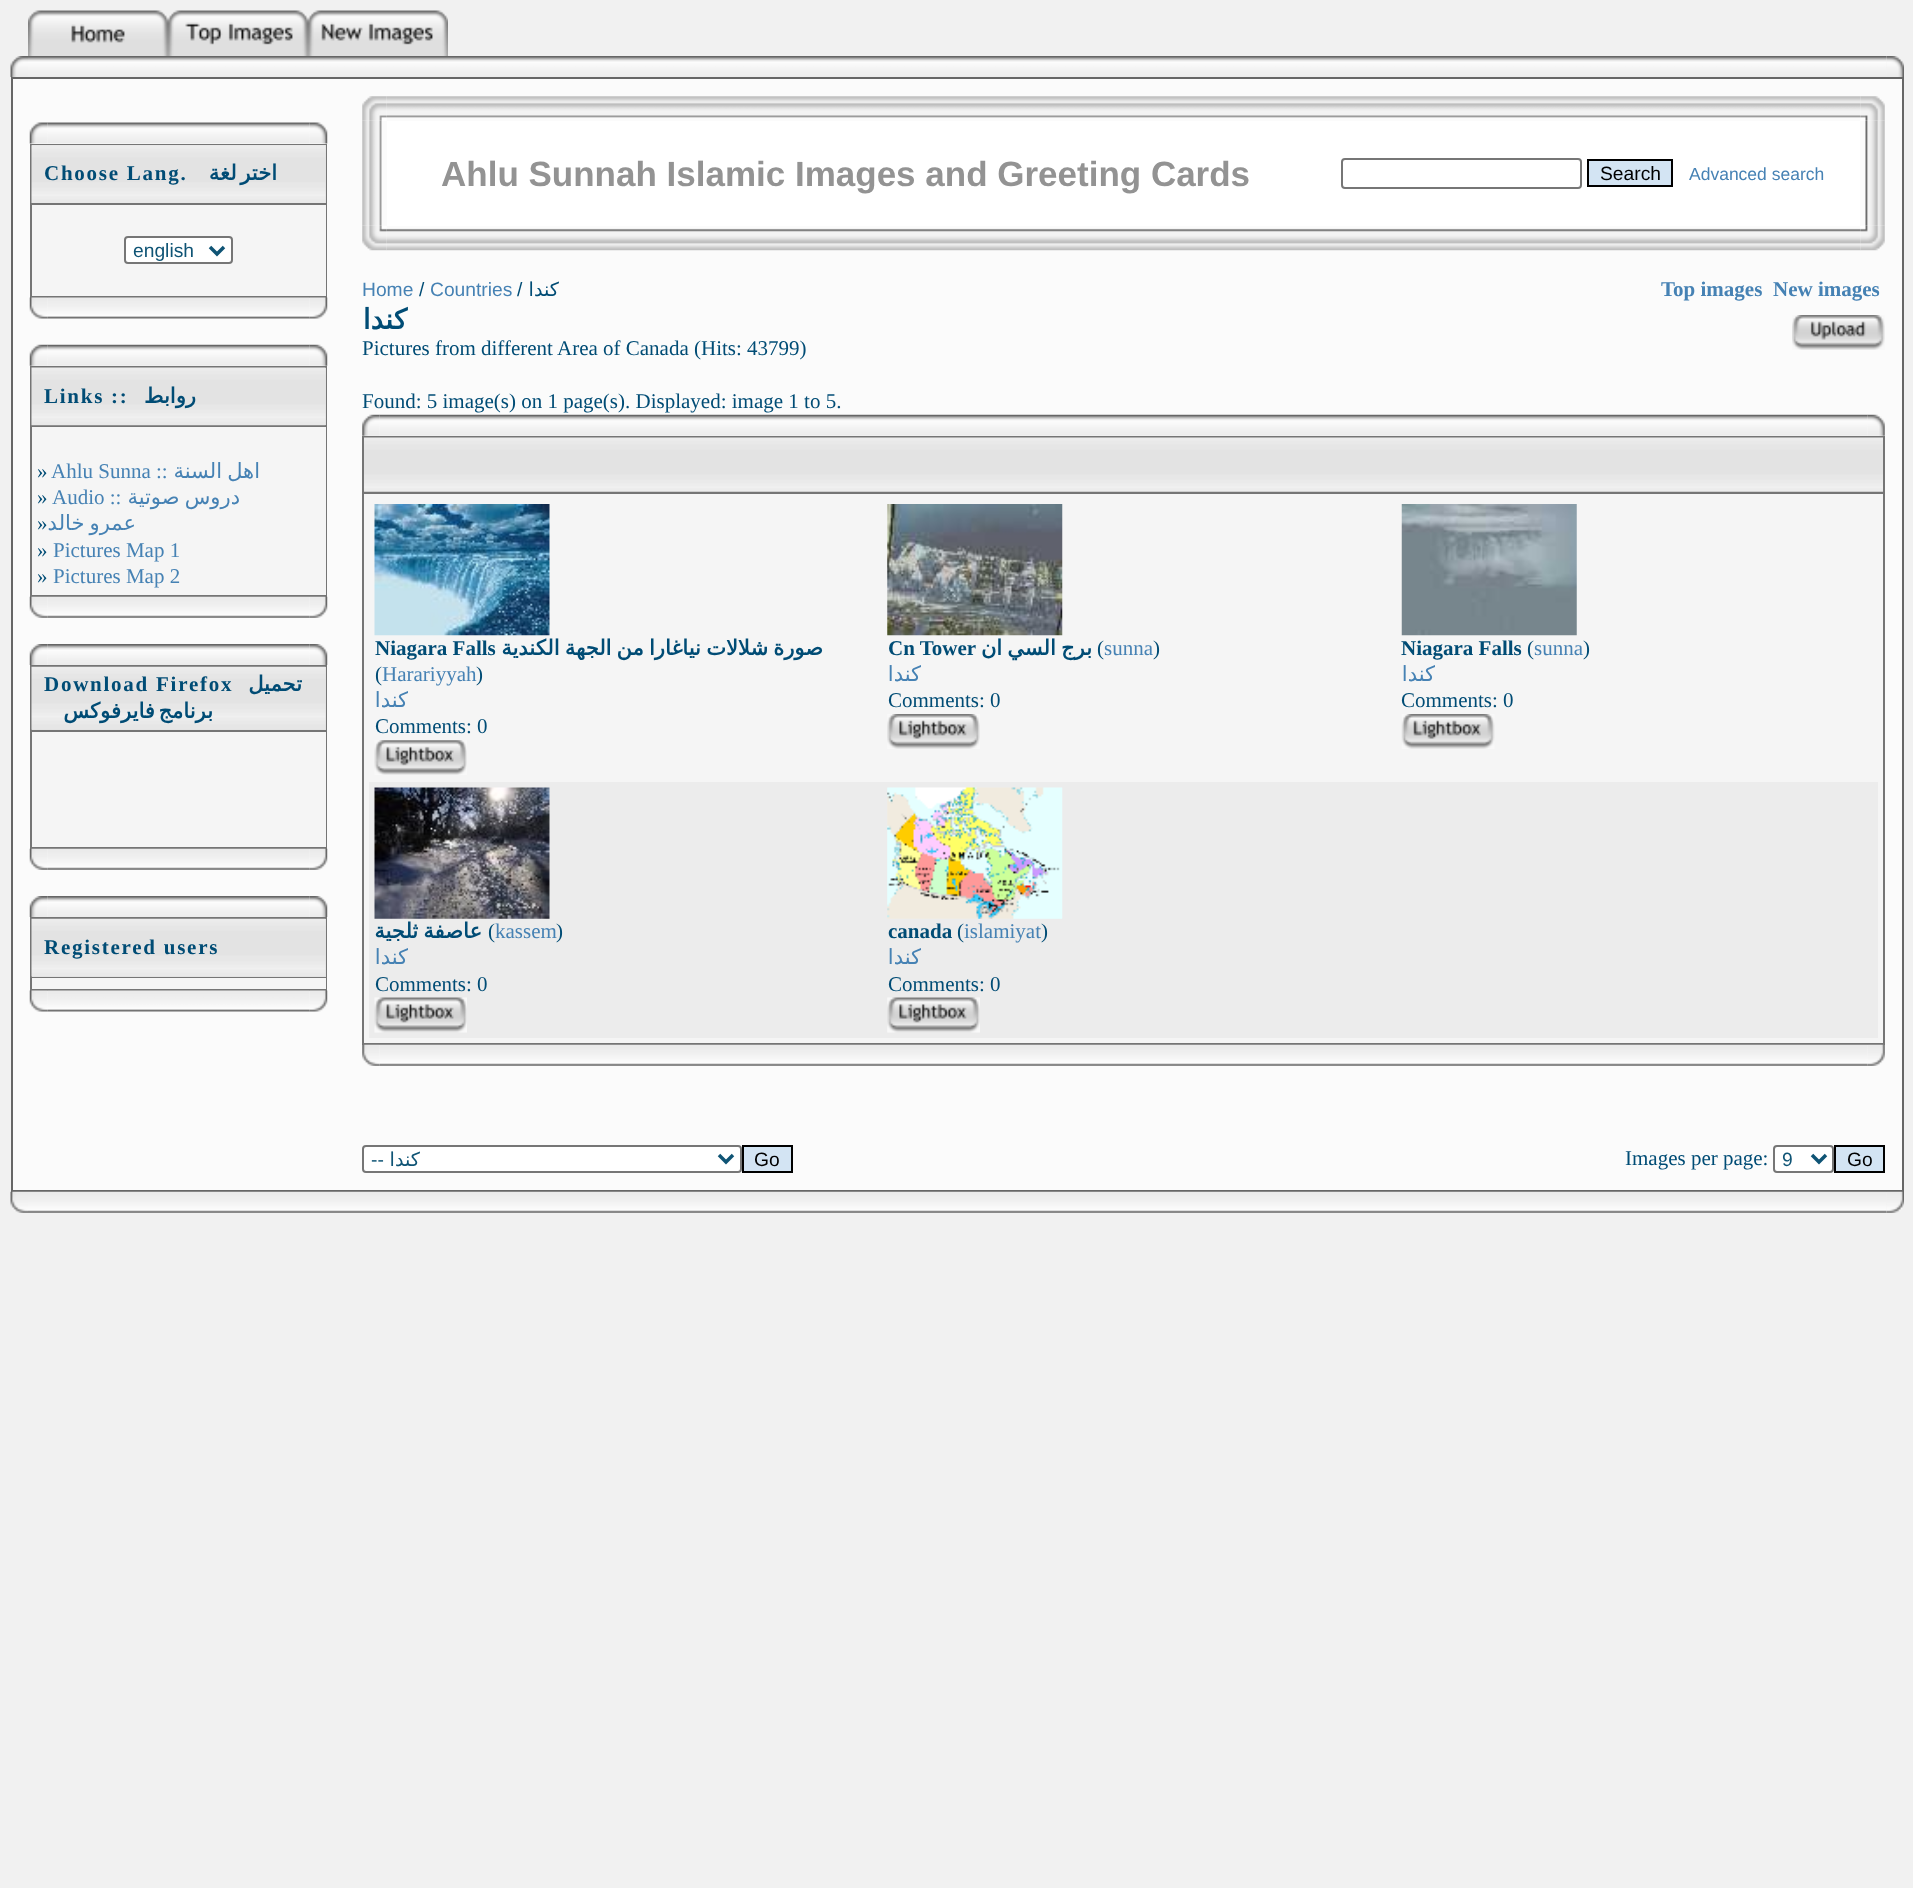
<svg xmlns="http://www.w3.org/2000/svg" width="1913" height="1888">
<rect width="100%" height="100%" fill="#f1f1f1"/>
<image x="28" y="10" width="140" height="46" href="media/1.png"/>
<image x="168" y="10" width="140" height="46" href="media/2.png"/>
<image x="308" y="10" width="140" height="46" href="media/3.png"/>
<image x="10" y="56" width="18" height="21" href="media/4.png"/>
<image x="28" y="56" width="1859" height="21" href="media/5.png"/>
<image x="1886" y="56" width="18" height="21" href="media/6.png"/>
<rect x="12" y="78" width="1891" height="1113" fill="#fbfbfb" stroke="#666" stroke-width="2"/>
<image x="47" y="122" width="263" height="22" href="media/8.png"/>
<image x="29" y="122" width="19" height="22" href="media/7.png"/>
<image x="309" y="122" width="19" height="22" href="media/9.png"/>
<rect x="30" y="144" width="297" height="154" fill="#757575"/>
<rect x="32" y="145" width="294" height="58" fill="#dedede"/>
<image x="31" y="145" width="295" height="58" href="media/10.png"/>
<text x="44" y="180" style="font-family:Liberation Serif;font-size:21px;font-weight:bold;letter-spacing:1.75px;fill:#004c75">Choose Lang.</text>
<text x="277" y="180" word-spacing="-3" style="font-family:DejaVu Sans;font-size:21px;font-weight:bold;letter-spacing:1.75px;direction:rtl;fill:#004c75">اختر لغة</text>
<rect x="32" y="205" width="294" height="91" fill="#f5f5f5"/>
<rect x="125" y="237" width="107" height="26" rx="3" fill="#fff" stroke="#767676" stroke-width="2"/>
<path d="M210 247l7 7l7-7" fill="none" stroke="#0f5475" stroke-width="3.5"/>
<text x="133" y="257" style="font-family:Liberation Sans;font-size:19.25px;fill:#0f5475">english</text>
<image x="47" y="297" width="263" height="22" href="media/12.png"/>
<image x="29" y="297" width="19" height="22" href="media/11.png"/>
<image x="309" y="297" width="19" height="22" href="media/13.png"/>
<image x="47" y="344" width="263" height="22" href="media/15.png"/>
<image x="29" y="344" width="19" height="22" href="media/14.png"/>
<image x="309" y="344" width="19" height="22" href="media/16.png"/>
<rect x="30" y="366" width="297" height="231" fill="#757575"/>
<rect x="325" y="368" width="1" height="57" fill="#dedede"/>
<image x="31" y="367" width="295" height="59" href="media/17.png"/>
<text x="44" y="403" style="font-family:Liberation Serif;font-size:21px;font-weight:bold;letter-spacing:1.75px;fill:#004c75">Links ::</text>
<text x="196" y="403" style="font-family:DejaVu Sans;font-size:21px;font-weight:bold;letter-spacing:1.75px;direction:rtl;fill:#004c75">روابط</text>
<rect x="32" y="427" width="294" height="168" fill="#f5f5f5"/>
<text x="37" y="478" style="font-family:Liberation Serif;font-size:21px;fill:#004c75">»</text>
<text x="51" y="478" style="font-family:Liberation Serif;font-size:21px;fill:#4682b4">Ahlu Sunna ::</text>
<text x="260" y="478" word-spacing="-1.5" style="font-family:DejaVu Sans;font-size:21px;direction:rtl;fill:#4682b4">اهل السنة</text>
<text x="37" y="504" style="font-family:Liberation Serif;font-size:21px;fill:#004c75">»</text>
<text x="52" y="504" style="font-family:Liberation Serif;font-size:21px;fill:#4682b4">Audio ::</text>
<text x="240" y="504" word-spacing="-1.5" style="font-family:DejaVu Sans;font-size:21px;direction:rtl;fill:#4682b4">دروس صوتية</text>
<text x="37" y="530" style="font-family:Liberation Serif;font-size:21px;fill:#004c75">»</text>
<text x="136" y="530" word-spacing="-1.5" style="font-family:DejaVu Sans;font-size:21px;direction:rtl;fill:#4682b4">عمرو خالد</text>
<text x="37" y="557" style="font-family:Liberation Serif;font-size:21px;fill:#004c75">»</text>
<text x="53" y="557" style="font-family:Liberation Serif;font-size:21px;fill:#4682b4">Pictures Map 1</text>
<text x="37" y="583" style="font-family:Liberation Serif;font-size:21px;fill:#004c75">»</text>
<text x="53" y="583" style="font-family:Liberation Serif;font-size:21px;fill:#4682b4">Pictures Map 2</text>
<image x="47" y="596" width="263" height="22" href="media/19.png"/>
<image x="29" y="596" width="19" height="22" href="media/18.png"/>
<image x="309" y="596" width="19" height="22" href="media/20.png"/>
<image x="47" y="644" width="263" height="21" href="media/22.png"/>
<image x="29" y="644" width="19" height="21" href="media/21.png"/>
<image x="309" y="644" width="19" height="21" href="media/23.png"/>
<rect x="30" y="665" width="297" height="184" fill="#757575"/>
<rect x="32" y="667" width="294" height="63" fill="#dedede"/>
<image x="31" y="666" width="295" height="64" href="media/24.png"/>
<text x="44" y="691" style="font-family:Liberation Serif;font-size:21px;font-weight:bold;letter-spacing:1.75px;fill:#004c75">Download Firefox</text>
<text x="302" y="691" style="font-family:DejaVu Sans;font-size:21px;font-weight:bold;letter-spacing:1.75px;direction:rtl;fill:#004c75">تحميل</text>
<text x="213" y="718" word-spacing="-3" style="font-family:DejaVu Sans;font-size:21px;font-weight:bold;letter-spacing:1.75px;direction:rtl;fill:#004c75">برنامج فايرفوكس</text>
<rect x="32" y="732" width="294" height="115" fill="#f5f5f5"/>
<image x="47" y="848" width="263" height="22" href="media/19.png"/>
<image x="29" y="848" width="19" height="22" href="media/18.png"/>
<image x="309" y="848" width="19" height="22" href="media/20.png"/>
<image x="47" y="896" width="263" height="21" href="media/25.png"/>
<image x="29" y="896" width="19" height="21" href="media/21.png"/>
<image x="309" y="896" width="19" height="21" href="media/23.png"/>
<rect x="30" y="917" width="297" height="74" fill="#757575"/>
<rect x="32" y="919" width="294" height="58" fill="#dedede"/>
<image x="31" y="918" width="295" height="59" href="media/26.png"/>
<text x="44" y="954" style="font-family:Liberation Serif;font-size:21px;font-weight:bold;letter-spacing:1.75px;fill:#004c75">Registered users</text>
<rect x="32" y="978" width="294" height="11" fill="#f5f5f5"/>
<image x="47" y="990" width="263" height="22" href="media/27.png"/>
<image x="29" y="990" width="19" height="22" href="media/11.png"/>
<image x="309" y="990" width="19" height="22" href="media/13.png"/>
<image x="386" y="96" width="1475" height="22" href="media/29.png"/>
<image x="362" y="120" width="20" height="106" href="media/31.png"/>
<image x="362" y="96" width="25" height="25" href="media/28.png"/>
<image x="1865" y="120" width="20" height="106" href="media/32.png"/>
<image x="1860" y="96" width="25" height="25" href="media/30.png"/>
<rect x="387" y="121" width="1473" height="105" fill="#fff"/>
<text x="441" y="186" style="font-family:Liberation Sans;font-size:35px;font-weight:bold;fill:#939393">Ahlu Sunnah Islamic Images and Greeting Cards</text>
<rect x="1342" y="159" width="239" height="29" rx="3" fill="none" stroke="#767676" stroke-width="2"/>
<rect x="1588" y="160" width="84" height="26" fill="#d3e4f3" stroke="#000" stroke-width="2"/>
<text x="1600" y="180" style="font-family:Liberation Sans;font-size:19.25px;fill:#000">Search</text>
<text x="1689" y="180" style="font-family:Liberation Sans;font-size:17.5px;fill:#4682b4">Advanced search</text>
<image x="386" y="228" width="1475" height="23" href="media/34.png"/>
<image x="362" y="225" width="25" height="26" href="media/33.png"/>
<image x="1860" y="225" width="25" height="26" href="media/35.png"/>
<text x="362" y="296" style="font-family:Liberation Sans;font-size:19.25px;fill:#4682b4">Home</text>
<text x="419" y="296" style="font-family:Liberation Sans;font-size:19.25px;fill:#004c75">/</text>
<text x="430" y="296" style="font-family:Liberation Sans;font-size:19.25px;fill:#4682b4">Countries</text>
<text x="517" y="296" style="font-family:Liberation Sans;font-size:19.25px;fill:#004c75">/</text>
<text x="559" y="296" style="font-family:DejaVu Sans;font-size:19.25px;direction:rtl;fill:#004c75">كندا</text>
<text x="1661" y="296" style="font-family:Liberation Serif;font-size:21px;font-weight:bold;fill:#4682b4">Top images</text>
<text x="1773" y="296" style="font-family:Liberation Serif;font-size:21px;font-weight:bold;fill:#4682b4">New images</text>
<text x="407" y="329" style="font-family:DejaVu Sans;font-size:28px;font-weight:bold;direction:rtl;fill:#004c75">كندا</text>
<text x="362" y="355" style="font-family:Liberation Serif;font-size:21px;fill:#004c75">Pictures from different Area of Canada (Hits: 43799)</text>
<image x="1792" y="315" width="93" height="35" href="media/36.png"/>
<text x="362" y="408" style="font-family:Liberation Serif;font-size:21px;fill:#004c75">Found: 5 image(s) on 1 page(s). Displayed: image 1 to 5.</text>
<image x="379" y="414" width="1489" height="22" href="media/38.png"/>
<image x="362" y="414" width="18" height="22" href="media/37.png"/>
<image x="1867" y="414" width="18" height="22" href="media/39.png"/>
<rect x="362" y="436" width="1523" height="609" fill="#757575"/>
<image x="364" y="437" width="1519" height="55" href="media/40.png"/>
<rect x="364" y="494" width="1519" height="549" fill="#f5f5f5"/>
<image x="374" y="504" width="176" height="132" href="media/41.png"/>
<text x="375" y="655" style="font-family:Liberation Serif;font-size:21px;font-weight:bold;fill:#004c75">Niagara Falls</text>
<text x="823" y="655" word-spacing="-1.5" style="font-family:DejaVu Sans;font-size:21px;font-weight:bold;direction:rtl;fill:#004c75">صورة شلالات نياغارا من الجهة الكندية</text>
<text x="375" y="681" style="font-family:Liberation Serif;font-size:21px;fill:#004c75">(</text>
<text x="382" y="681" style="font-family:Liberation Serif;font-size:21px;fill:#4682b4">Harariyyah</text>
<text x="476" y="681" style="font-family:Liberation Serif;font-size:21px;fill:#004c75">)</text>
<text x="408" y="707" style="font-family:DejaVu Sans;font-size:21px;direction:rtl;fill:#4682b4">كندا</text>
<text x="375" y="733" style="font-family:Liberation Serif;font-size:21px;fill:#004c75">Comments: 0</text>
<image x="374" y="740" width="93" height="35" href="media/42.png"/>
<image x="887" y="504" width="176" height="132" href="media/43.png"/>
<text x="888" y="655" style="font-family:Liberation Serif;font-size:21px;font-weight:bold;fill:#004c75">Cn Tower</text>
<text x="1092" y="655" word-spacing="-1.5" style="font-family:DejaVu Sans;font-size:21px;font-weight:bold;direction:rtl;fill:#004c75">برج السي ان</text>
<text x="1097" y="655" style="font-family:Liberation Serif;font-size:21px;fill:#004c75">(</text>
<text x="1104" y="655" style="font-family:Liberation Serif;font-size:21px;fill:#4682b4">sunna</text>
<text x="1153" y="655" style="font-family:Liberation Serif;font-size:21px;fill:#004c75">)</text>
<text x="921" y="681" style="font-family:DejaVu Sans;font-size:21px;direction:rtl;fill:#4682b4">كندا</text>
<text x="888" y="707" style="font-family:Liberation Serif;font-size:21px;fill:#004c75">Comments: 0</text>
<image x="887" y="714" width="93" height="35" href="media/44.png"/>
<image x="1401" y="504" width="176" height="132" href="media/45.png"/>
<text x="1401" y="655" style="font-family:Liberation Serif;font-size:21px;font-weight:bold;fill:#004c75">Niagara Falls</text>
<text x="1527" y="655" style="font-family:Liberation Serif;font-size:21px;fill:#004c75">(</text>
<text x="1534" y="655" style="font-family:Liberation Serif;font-size:21px;fill:#4682b4">sunna</text>
<text x="1583" y="655" style="font-family:Liberation Serif;font-size:21px;fill:#004c75">)</text>
<text x="1435" y="681" style="font-family:DejaVu Sans;font-size:21px;direction:rtl;fill:#4682b4">كندا</text>
<text x="1401" y="707" style="font-family:Liberation Serif;font-size:21px;fill:#004c75">Comments: 0</text>
<image x="1401" y="714" width="94" height="35" href="media/46.png"/>
<rect x="369" y="782" width="1509" height="256" fill="#ececec"/>
<image x="374" y="787" width="176" height="132" href="media/47.png"/>
<text x="482" y="938" word-spacing="-1.5" style="font-family:DejaVu Sans;font-size:21px;font-weight:bold;direction:rtl;fill:#004c75">عاصفة ثلجية</text>
<text x="488" y="938" style="font-family:Liberation Serif;font-size:21px;fill:#004c75">(</text>
<text x="495" y="938" style="font-family:Liberation Serif;font-size:21px;fill:#4682b4">kassem</text>
<text x="556" y="938" style="font-family:Liberation Serif;font-size:21px;fill:#004c75">)</text>
<text x="408" y="964" style="font-family:DejaVu Sans;font-size:21px;direction:rtl;fill:#4682b4">كندا</text>
<text x="375" y="991" style="font-family:Liberation Serif;font-size:21px;fill:#004c75">Comments: 0</text>
<image x="374" y="997" width="93" height="36" href="media/48.png"/>
<image x="887" y="787" width="176" height="132" href="media/49.png"/>
<text x="888" y="938" style="font-family:Liberation Serif;font-size:21px;font-weight:bold;fill:#004c75">canada</text>
<text x="957" y="938" style="font-family:Liberation Serif;font-size:21px;fill:#004c75">(</text>
<text x="964" y="938" style="font-family:Liberation Serif;font-size:21px;fill:#4682b4">islamiyat</text>
<text x="1041" y="938" style="font-family:Liberation Serif;font-size:21px;fill:#004c75">)</text>
<text x="921" y="964" style="font-family:DejaVu Sans;font-size:21px;direction:rtl;fill:#4682b4">كندا</text>
<text x="888" y="991" style="font-family:Liberation Serif;font-size:21px;fill:#004c75">Comments: 0</text>
<image x="887" y="997" width="93" height="36" href="media/50.png"/>
<image x="379" y="1044" width="1489" height="22" href="media/52.png"/>
<image x="362" y="1044" width="18" height="22" href="media/51.png"/>
<image x="1867" y="1044" width="18" height="22" href="media/53.png"/>
<rect x="363" y="1146" width="378" height="26" rx="3" fill="#fff" stroke="#767676" stroke-width="2"/>
<path d="M719 1155l7 7l7-7" fill="none" stroke="#0f5475" stroke-width="3.5"/>
<text x="371" y="1166" style="font-family:Liberation Sans;font-size:19.25px;fill:#0f5475">--</text>
<text x="420" y="1166" style="font-family:DejaVu Sans;font-size:19.25px;direction:rtl;fill:#0f5475">كندا</text>
<rect x="743" y="1146" width="49" height="26" fill="#d3e4f3" stroke="#000" stroke-width="2"/>
<text x="754" y="1166" style="font-family:Liberation Sans;font-size:19.25px;fill:#000">Go</text>
<text x="1625" y="1165" style="font-family:Liberation Serif;font-size:21px;fill:#004c75">Images per page:</text>
<rect x="1774" y="1146" width="59" height="26" rx="3" fill="#fff" stroke="#767676" stroke-width="2"/>
<path d="M1812 1155l7 7l7-7" fill="none" stroke="#0f5475" stroke-width="3.5"/>
<text x="1782" y="1166" style="font-family:Liberation Sans;font-size:19.25px;fill:#0f5475">9</text>
<rect x="1835" y="1146" width="49" height="26" fill="#d3e4f3" stroke="#000" stroke-width="2"/>
<text x="1847" y="1166" style="font-family:Liberation Sans;font-size:19.25px;fill:#000">Go</text>
<image x="10" y="1191" width="18" height="22" href="media/54.png"/>
<image x="28" y="1191" width="1859" height="22" href="media/55.png"/>
<image x="1886" y="1191" width="18" height="22" href="media/56.png"/>
</svg>
